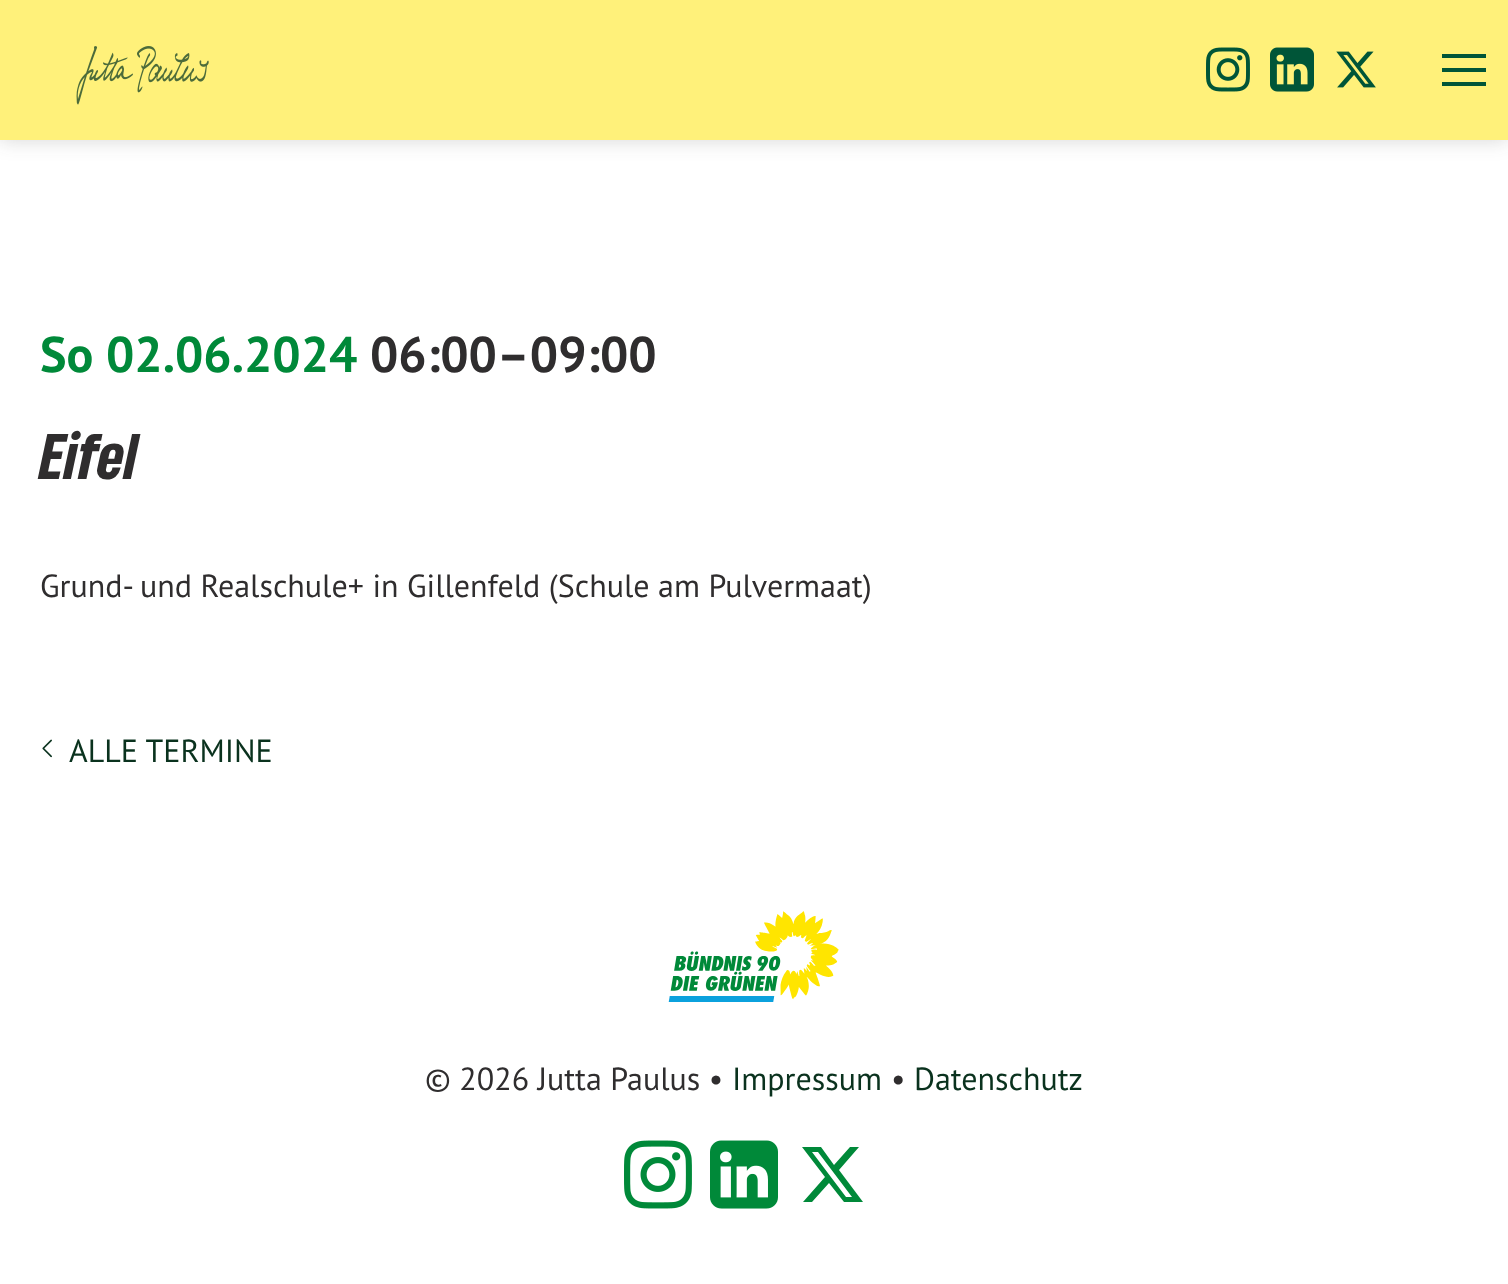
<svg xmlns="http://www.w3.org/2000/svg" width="1508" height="1284">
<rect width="100%" height="100%" fill="#fff"/>
<rect width="1508" height="140" fill="#2f2d2e33" filter="blur(10px)"/>
<rect width="1508" height="140" fill="#fff17a"/>
<image x="76" y="46" width="133" height="59" href="media/1.png"/>
<rect x="1442" y="82" width="44" height="4" fill="#005538"/>
<rect x="1442" y="68" width="44" height="4" fill="#005538"/>
<rect x="1442" y="54" width="44" height="4" fill="#005538"/>
<image x="1206" y="47" width="44" height="45" href="media/2.png"/>
<image x="1270" y="47" width="44" height="45" href="media/3.png"/>
<image x="1336" y="51" width="40" height="37" href="media/4.png"/>
<text x="40" y="372" style="font-family:PT Sans;font-size:50px;font-weight:bold;fill:#008939">So 02.06.2024</text>
<text x="370" y="372" style="font-family:PT Sans;font-size:50px;font-weight:bold;fill:#2f2d2e">06:00–09:00</text>
<text x="40" y="479" style="font-family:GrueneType;font-size:60px;font-weight:900;font-style:italic;fill:#2f2d2e">Eifel</text>
<text x="40" y="597" style="font-family:PT Sans;font-size:32px;fill:#2f2d2e">Grund- und Realschule+ in Gillenfeld (Schule am Pulvermaat)</text>
<image x="42" y="739" width="10" height="19" href="media/5.png"/>
<text x="69" y="762" style="font-family:PT Sans;font-size:32px;fill:#0a321e">ALLE TERMINE</text>
<image x="668" y="911" width="171" height="91" href="media/6.png"/>
<text x="425" y="1090" style="font-family:PT Sans;font-size:32px;fill:#2f2d2e">© 2026 Jutta Paulus •</text>
<text x="732" y="1090" style="font-family:PT Sans;font-size:32px;fill:#0a321e">Impressum</text>
<text x="891" y="1090" style="font-family:PT Sans;font-size:32px;fill:#2f2d2e">•</text>
<text x="914" y="1090" style="font-family:PT Sans;font-size:32px;fill:#0a321e">Datenschutz</text>
<image x="624" y="1140" width="68" height="69" href="media/7.png"/>
<image x="710" y="1140" width="68" height="69" href="media/8.png"/>
<path d="M850 1147h9l-20 23l24 32h-19l-15-19l-17 19h-9l22-25l-23-30h19l13 18zm-4 50h6l-34-45h-6z" fill="#008939"/>
</svg>
